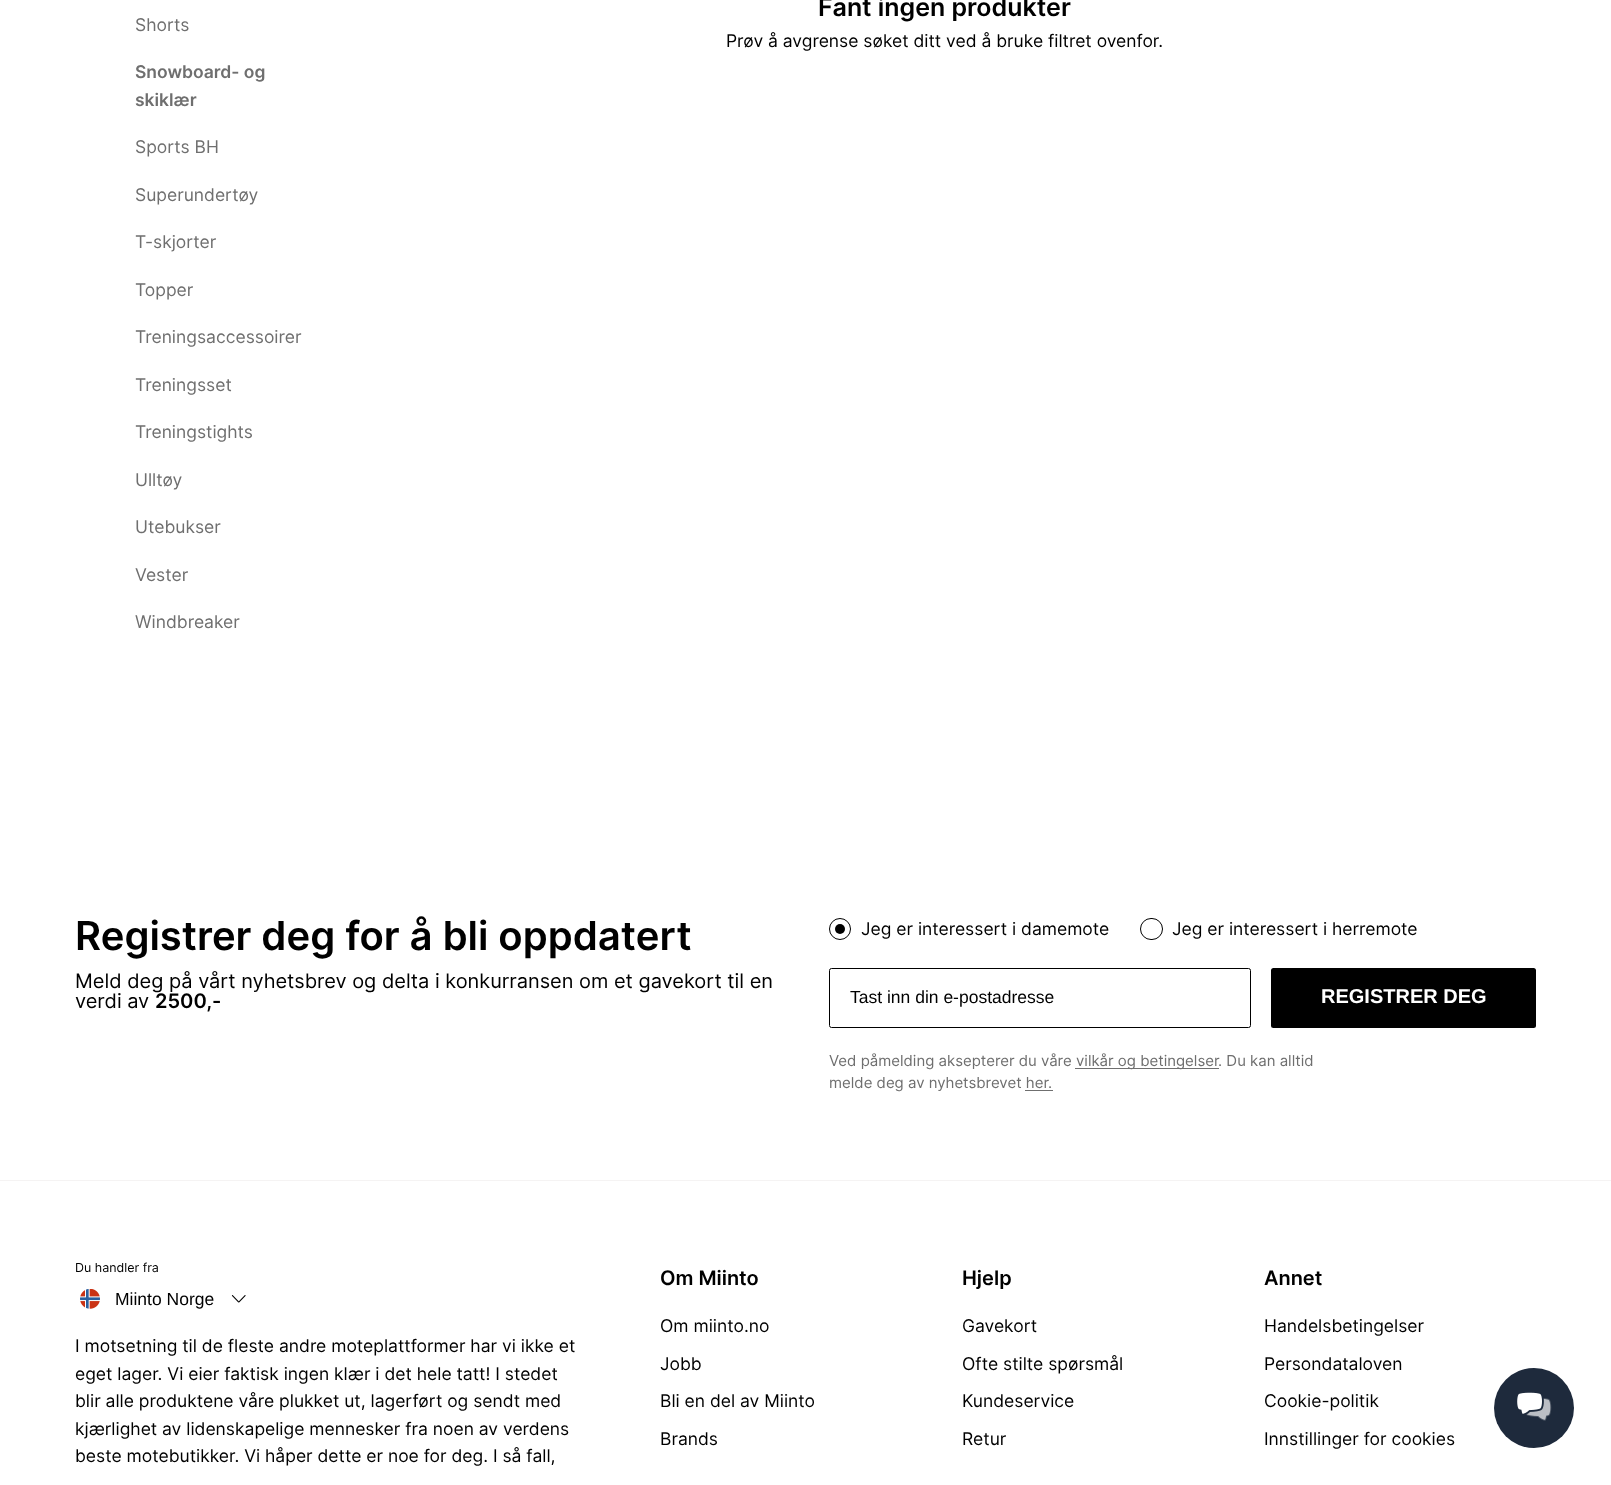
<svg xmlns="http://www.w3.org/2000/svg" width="1611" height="1485">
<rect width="100%" height="100%" fill="#fff"/>
<text x="135" y="31" style="font-family:Inter;font-size:17.5px;fill:#6f6f6f">Shorts</text>
<text x="135" y="78" style="font-family:Inter;font-size:17.5px;font-weight:600;fill:#6f6f6f">Snowboard- og</text>
<text x="135" y="106" style="font-family:Inter;font-size:17.5px;font-weight:600;fill:#6f6f6f">skiklær</text>
<text x="135" y="153" style="font-family:Inter;font-size:17.5px;fill:#6f6f6f">Sports BH</text>
<text x="135" y="201" style="font-family:Inter;font-size:17.5px;fill:#6f6f6f">Superundertøy</text>
<text x="135" y="248" style="font-family:Inter;font-size:17.5px;fill:#6f6f6f">T-skjorter</text>
<text x="135" y="296" style="font-family:Inter;font-size:17.5px;fill:#6f6f6f">Topper</text>
<text x="135" y="343" style="font-family:Inter;font-size:17.5px;fill:#6f6f6f">Treningsaccessoirer</text>
<text x="135" y="391" style="font-family:Inter;font-size:17.5px;fill:#6f6f6f">Treningsset</text>
<text x="135" y="438" style="font-family:Inter;font-size:17.5px;fill:#6f6f6f">Treningstights</text>
<text x="135" y="486" style="font-family:Inter;font-size:17.5px;fill:#6f6f6f">Ulltøy</text>
<text x="135" y="533" style="font-family:Inter;font-size:17.5px;fill:#6f6f6f">Utebukser</text>
<text x="135" y="581" style="font-family:Inter;font-size:17.5px;fill:#6f6f6f">Vester</text>
<text x="135" y="628" style="font-family:Inter;font-size:17.5px;fill:#6f6f6f">Windbreaker</text>
<text x="818" y="16" style="font-family:Inter;font-size:25px;font-weight:600;fill:#000">Fant ingen produkter</text>
<text x="726" y="47" style="font-family:Inter;font-size:17.5px;fill:#000">Prøv å avgrense søket ditt ved å bruke filtret ovenfor.</text>
<text x="75" y="950" style="font-family:Inter;font-size:40px;font-weight:600;fill:#000">Registrer deg for å bli oppdatert</text>
<text x="75" y="988" style="font-family:Inter;font-size:20px;fill:#000">Meld deg på vårt nyhetsbrev og delta i konkurransen om et gavekort til en</text>
<text x="75" y="1008" style="font-family:Inter;font-size:20px;fill:#000">verdi av</text>
<text x="155" y="1008" style="font-family:Inter;font-size:20px;font-weight:600;fill:#000">2500,-</text>
<circle cx="840" cy="929" r="10.5" fill="none" stroke="#000"/>
<circle cx="840" cy="929" r="5" fill="#000"/>
<text x="861" y="935" style="font-family:Inter;font-size:17.5px;fill:#000">Jeg er interessert i damemote</text>
<rect x="1140.5" y="918.5" width="22" height="21" rx="10.5" fill="none" stroke="#000"/>
<text x="1172" y="935" style="font-family:Inter;font-size:17.5px;fill:#000">Jeg er interessert i herremote</text>
<rect x="829.5" y="968.5" width="421" height="59" rx="2" fill="none" stroke="#000"/>
<text x="850" y="1003" style="font-family:Liberation Sans;font-size:17.5px;fill:#000">Tast inn din e-postadresse</text>
<rect x="1271" y="968" width="265" height="60" rx="2.5" fill="#000"/>
<text x="1321" y="1003" style="font-family:Liberation Sans;font-size:20px;font-weight:bold;fill:#fff">REGISTRER DEG</text>
<text x="829" y="1066" style="font-family:Inter;font-size:15px;fill:#6f6f6f">Ved påmelding aksepterer du våre</text>
<rect x="1075" y="1068" width="144" height="1" fill="#6f6f6f"/>
<text x="1076" y="1066" style="font-family:Inter;font-size:15px;fill:#6f6f6f">vilkår og betingelser</text>
<text x="1218" y="1066" style="font-family:Inter;font-size:15px;fill:#6f6f6f">. Du kan alltid</text>
<text x="829" y="1088" style="font-family:Inter;font-size:15px;fill:#6f6f6f">melde deg av nyhetsbrevet her.</text>
<rect x="1025" y="1090" width="28" height="1" fill="#6f6f6f"/>
<rect y="1180" width="1611" height="1" fill="#f5f3f3"/>
<text x="75" y="1272" style="font-family:Inter;font-size:12.5px;fill:#000">Du handler fra</text>
<image x="80" y="1289" width="20" height="20" href="media/1.png"/>
<text x="115" y="1305" style="font-family:Liberation Sans;font-size:17.5px;fill:#000">Miinto Norge</text>
<image x="231" y="1295" width="15" height="8" href="media/2.png"/>
<text x="75" y="1352" style="font-family:Inter;font-size:17.5px;fill:#000">I motsetning til de fleste andre moteplattformer har vi ikke et</text>
<text x="75" y="1380" style="font-family:Inter;font-size:17.5px;fill:#000">eget lager. Vi eier faktisk ingen klær i det hele tatt! I stedet</text>
<text x="75" y="1407" style="font-family:Inter;font-size:17.5px;fill:#000">blir alle produktene våre plukket ut, lagerført og sendt med</text>
<text x="75" y="1435" style="font-family:Inter;font-size:17.5px;fill:#000">kjærlighet av lidenskapelige mennesker fra noen av verdens</text>
<text x="75" y="1462" style="font-family:Inter;font-size:17.5px;fill:#000">beste motebutikker. Vi håper dette er noe for deg. I så fall,</text>
<text x="660" y="1285" style="font-family:Inter;font-size:20px;font-weight:600;fill:#000">Om Miinto</text>
<text x="660" y="1332" style="font-family:Inter;font-size:17.5px;fill:#000">Om miinto.no</text>
<text x="660" y="1370" style="font-family:Inter;font-size:17.5px;fill:#000">Jobb</text>
<text x="660" y="1407" style="font-family:Inter;font-size:17.5px;fill:#000">Bli en del av Miinto</text>
<text x="660" y="1445" style="font-family:Inter;font-size:17.5px;fill:#000">Brands</text>
<text x="962" y="1285" style="font-family:Inter;font-size:20px;font-weight:600;fill:#000">Hjelp</text>
<text x="962" y="1332" style="font-family:Inter;font-size:17.5px;fill:#000">Gavekort</text>
<text x="962" y="1370" style="font-family:Inter;font-size:17.5px;fill:#000">Ofte stilte spørsmål</text>
<text x="962" y="1407" style="font-family:Inter;font-size:17.5px;fill:#000">Kundeservice</text>
<text x="962" y="1445" style="font-family:Inter;font-size:17.5px;fill:#000">Retur</text>
<text x="1264" y="1285" style="font-family:Inter;font-size:20px;font-weight:600;fill:#000">Annet</text>
<text x="1264" y="1332" style="font-family:Inter;font-size:17.5px;fill:#000">Handelsbetingelser</text>
<text x="1264" y="1370" style="font-family:Inter;font-size:17.5px;fill:#000">Persondataloven</text>
<text x="1264" y="1407" style="font-family:Inter;font-size:17.5px;fill:#000">Cookie-politik</text>
<text x="1264" y="1445" style="font-family:Inter;font-size:17.5px;fill:#000">Innstillinger for cookies</text>
<circle cx="1534" cy="1408" r="40" fill="#1e2a3c"/>
<image x="1517" y="1392" width="35" height="29" href="media/3.png"/>
</svg>
